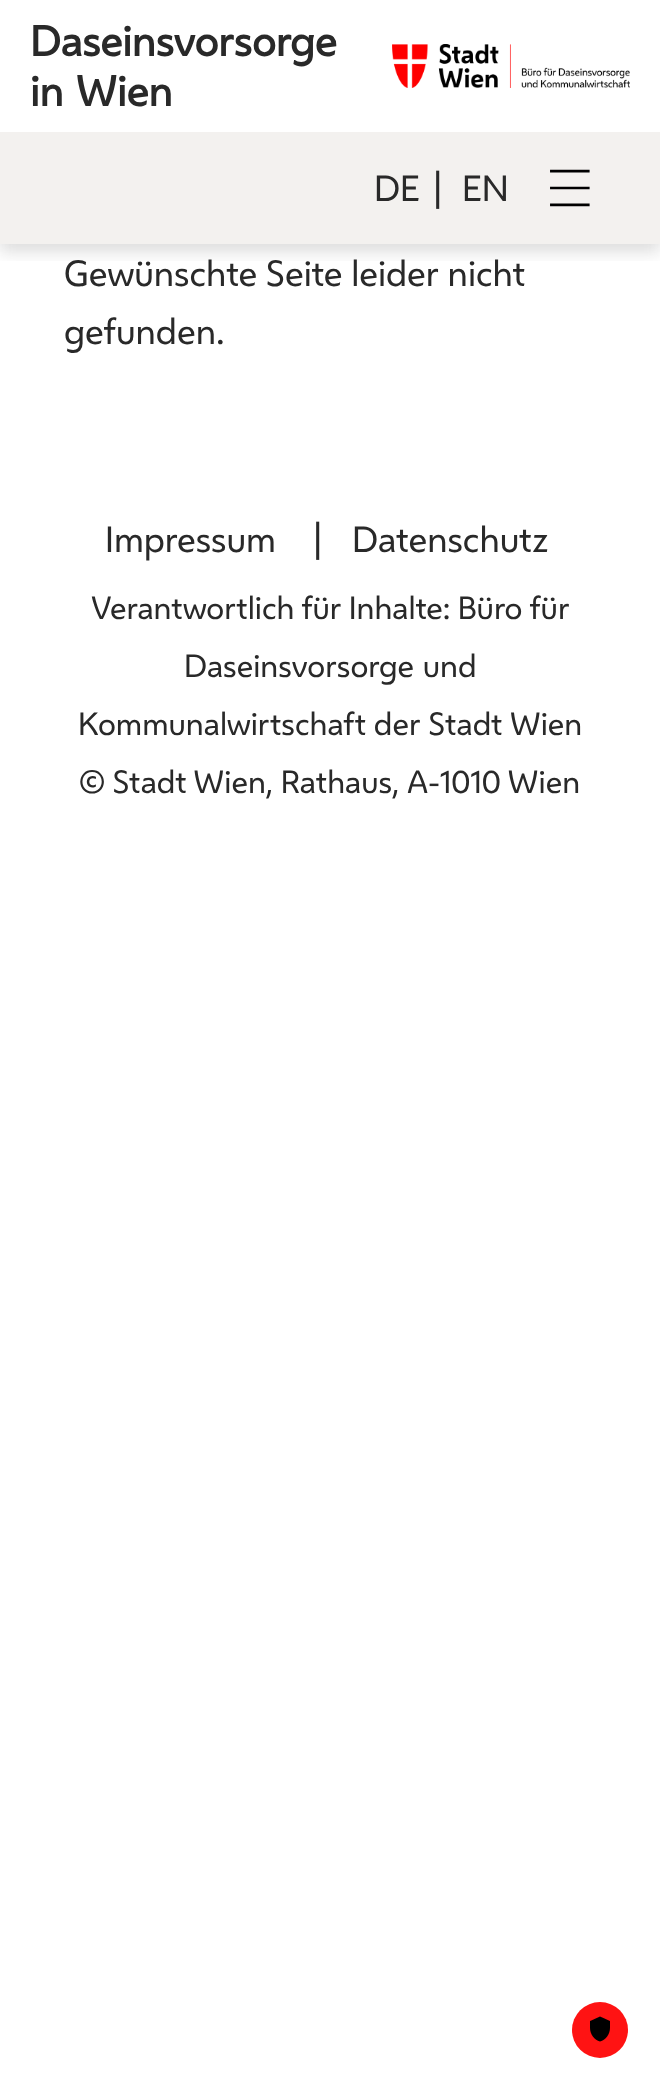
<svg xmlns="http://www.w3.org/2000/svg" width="660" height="2089">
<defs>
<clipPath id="clip1"><rect x="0" y="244" width="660" height="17"/></clipPath>
</defs>
<rect width="100%" height="100%" fill="#fff"/>
<g clip-path="url(#clip1)">
<rect y="8" width="660" height="244" fill="#29292929" filter="blur(8px)"/>
</g>
<text x="30" y="56" style="font-family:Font;font-size:40px;font-weight:bold;fill:#292929">Daseinsvorsorge</text>
<text x="30" y="106" word-spacing="4" style="font-family:Font;font-size:40px;font-weight:bold;fill:#292929">in Wien</text>
<image x="392" y="44" width="238" height="44" href="media/1.png"/>
<rect y="132" width="660" height="112" fill="#f3f1ef"/>
<text x="374" y="201" style="font-family:Font;font-size:34px;fill:#292929">DE</text>
<text x="433" y="201" style="font-family:Font;font-size:34px;fill:#292929">|</text>
<text x="462" y="201" style="font-family:Font;font-size:34px;fill:#292929">EN</text>
<image x="550" y="169" width="40" height="38" href="media/2.png"/>
<text x="64" y="286" word-spacing="1" style="font-family:Font;font-size:34px;fill:#292929">Gewünschte Seite leider nicht</text>
<text x="64" y="344" style="font-family:Font;font-size:34px;fill:#292929">gefunden.</text>
<text x="105" y="552" style="font-family:Font;font-size:34px;fill:#292929">Impressum</text>
<text x="313" y="552" style="font-family:Font;font-size:34px;fill:#292929">|</text>
<text x="352" y="552" style="font-family:Font;font-size:34px;fill:#292929">Datenschutz</text>
<text x="91" y="619" word-spacing="0.5" style="font-family:Font;font-size:30px;fill:#292929">Verantwortlich für Inhalte: Büro für</text>
<text x="184" y="677" word-spacing="2" style="font-family:Font;font-size:30px;fill:#292929">Daseinsvorsorge und</text>
<text x="78" y="735" word-spacing="1" style="font-family:Font;font-size:30px;fill:#292929">Kommunalwirtschaft der Stadt Wien</text>
<text x="79" y="793" word-spacing="0.5" style="font-family:Font;font-size:30px;fill:#292929">© Stadt Wien, Rathaus, A-1010 Wien</text>
<circle cx="600" cy="2030" r="28" fill="#ff1313"/>
<image x="590" y="2016" width="20" height="26" href="media/3.png"/>
</svg>
